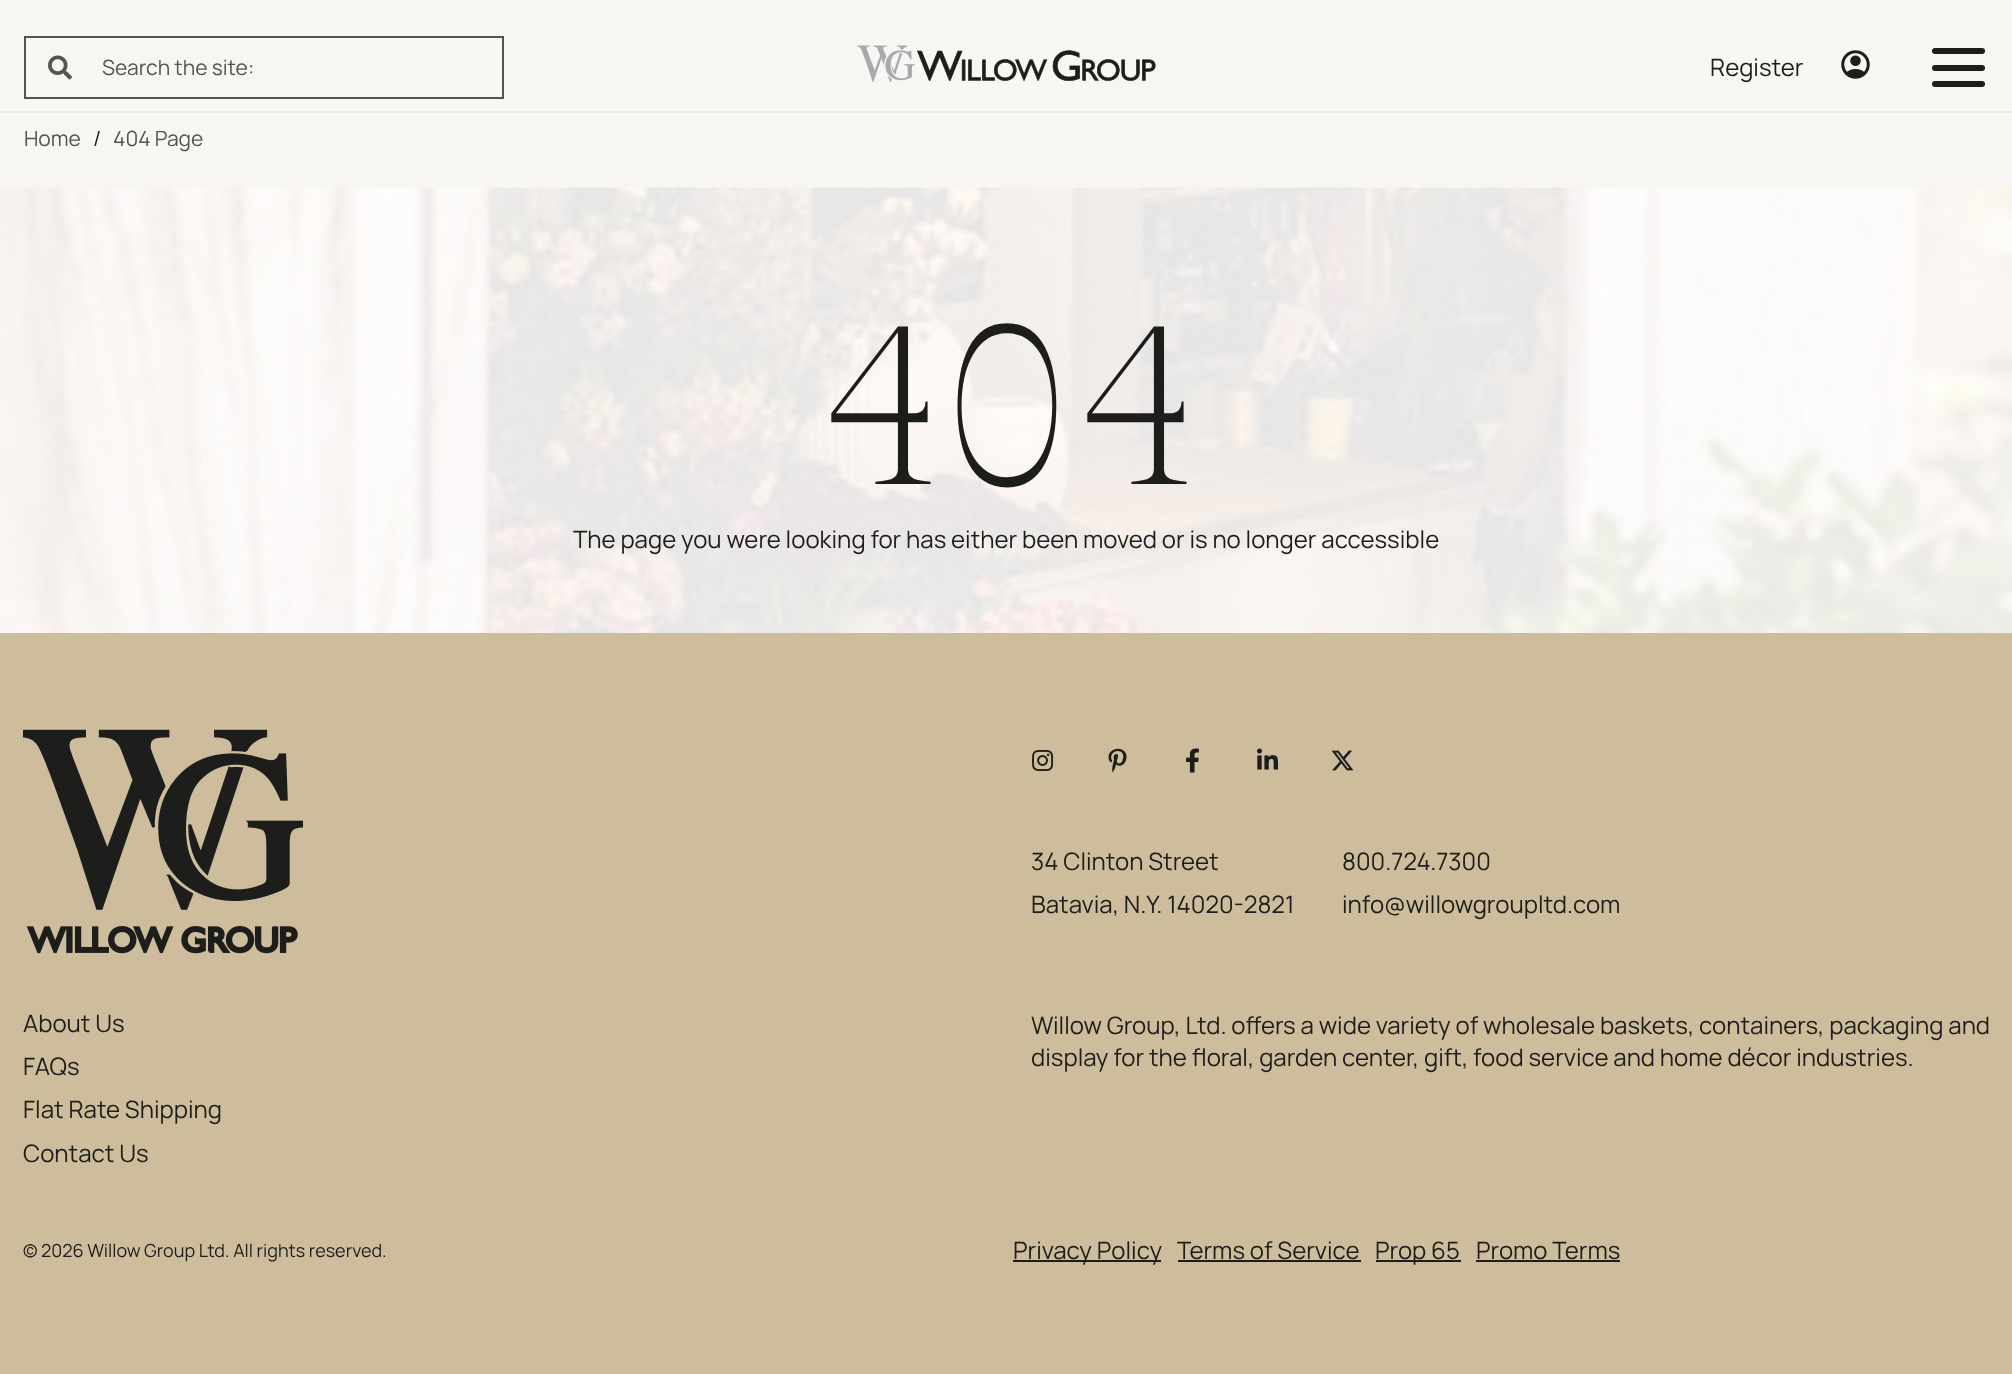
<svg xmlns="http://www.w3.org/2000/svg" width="2012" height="1374">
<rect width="100%" height="100%" fill="#f8f6f2"/>
<rect y="111" width="2012" height="2" fill="#eaecf1"/>
<rect x="25" y="37" width="478" height="61" fill="none" stroke="#545454" stroke-width="2"/>
<image x="48" y="55" width="24" height="25" href="media/1.png"/>
<text x="102" y="75" style="font-family:Manrope;font-size:21px;fill:#545454">Search the site:</text>
<image x="857" y="45" width="299" height="37" href="media/2.png"/>
<text x="1710" y="76" style="font-family:Manrope;font-size:24px;fill:#1d1d1b">Register</text>
<image x="1841" y="50" width="29" height="29" href="media/3.png"/>
<rect x="1932" y="48" width="53" height="6" rx="3" fill="#1d1d1b"/>
<rect x="1932" y="65" width="53" height="6" rx="3" fill="#1d1d1b"/>
<rect x="1932" y="81" width="53" height="6" rx="3" fill="#1d1d1b"/>
<text x="24" y="146" style="font-family:Manrope;font-size:21px;fill:#545454">Home</text>
<text x="93" y="146" style="font-family:Manrope;font-size:21px;fill:#1d1d1b">/</text>
<text x="113" y="146" style="font-family:Manrope;font-size:21px;fill:#545454">404 Page</text>
<image x="0" y="187" width="2012" height="446" href="media/4.png"/>
<text x="816" y="484" style="font-family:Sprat;font-size:225px;font-weight:100;fill:#1d1d1b">404</text>
<text x="573" y="548" style="font-family:Manrope;font-size:24px;fill:#1d1d1b">The page you were looking for has either been moved or is no longer accessible</text>
<rect y="633" width="2012" height="741" fill="#cdbd9c"/>
<image x="1032" y="750" width="22" height="21" href="media/5.png"/>
<image x="1108" y="748" width="19" height="25" href="media/6.png"/>
<image x="1186" y="748" width="13" height="25" href="media/7.png"/>
<image x="1257" y="748" width="21" height="22" href="media/8.png"/>
<image x="1331" y="750" width="23" height="21" href="media/9.png"/>
<text x="1031" y="870" style="font-family:Manrope;font-size:24px;fill:#1d1d1b">34 Clinton Street</text>
<text x="1031" y="913" style="font-family:Manrope;font-size:24px;fill:#1d1d1b">Batavia, N.Y. 14020-2821</text>
<text x="1342" y="870" style="font-family:Manrope;font-size:24px;fill:#1d1d1b">800.724.7300</text>
<text x="1342" y="913" style="font-family:Manrope;font-size:24px;fill:#1d1d1b">info@willowgroupltd.com</text>
<text x="1031" y="1034" style="font-family:Manrope;font-size:24px;fill:#1d1d1b">Willow Group, Ltd. offers a wide variety of wholesale baskets, containers, packaging and</text>
<text x="1031" y="1066" style="font-family:Manrope;font-size:24px;fill:#1d1d1b">display for the floral, garden center, gift, food service and home décor industries.</text>
<image x="23" y="729" width="280" height="225" href="media/10.png"/>
<text x="23" y="1032" style="font-family:Manrope;font-size:24px;fill:#1d1d1b">About Us</text>
<text x="23" y="1075" style="font-family:Manrope;font-size:24px;fill:#1d1d1b">FAQs</text>
<text x="23" y="1118" style="font-family:Manrope;font-size:24px;fill:#1d1d1b">Flat Rate Shipping</text>
<text x="23" y="1162" style="font-family:Manrope;font-size:24px;fill:#1d1d1b">Contact Us</text>
<text x="23" y="1257" style="font-family:Manrope;font-size:18px;fill:#1d1d1b">© 2026 Willow Group Ltd. All rights reserved.</text>
<rect x="1013" y="1260" width="148" height="2" fill="#1d1d1b"/>
<text x="1013" y="1259" style="font-family:Manrope;font-size:24px;fill:#1d1d1b">Privacy Policy</text>
<text x="1177" y="1259" style="font-family:Manrope;font-size:24px;fill:#1d1d1b">Terms of Service</text>
<rect x="1178" y="1260" width="183" height="2" fill="#1d1d1b"/>
<rect x="1376" y="1260" width="85" height="2" fill="#1d1d1b"/>
<text x="1375" y="1259" style="font-family:Manrope;font-size:24px;fill:#1d1d1b">Prop 65</text>
<text x="1476" y="1259" style="font-family:Manrope;font-size:24px;fill:#1d1d1b">Promo Terms</text>
<rect x="1476" y="1260" width="144" height="2" fill="#1d1d1b"/>
</svg>
